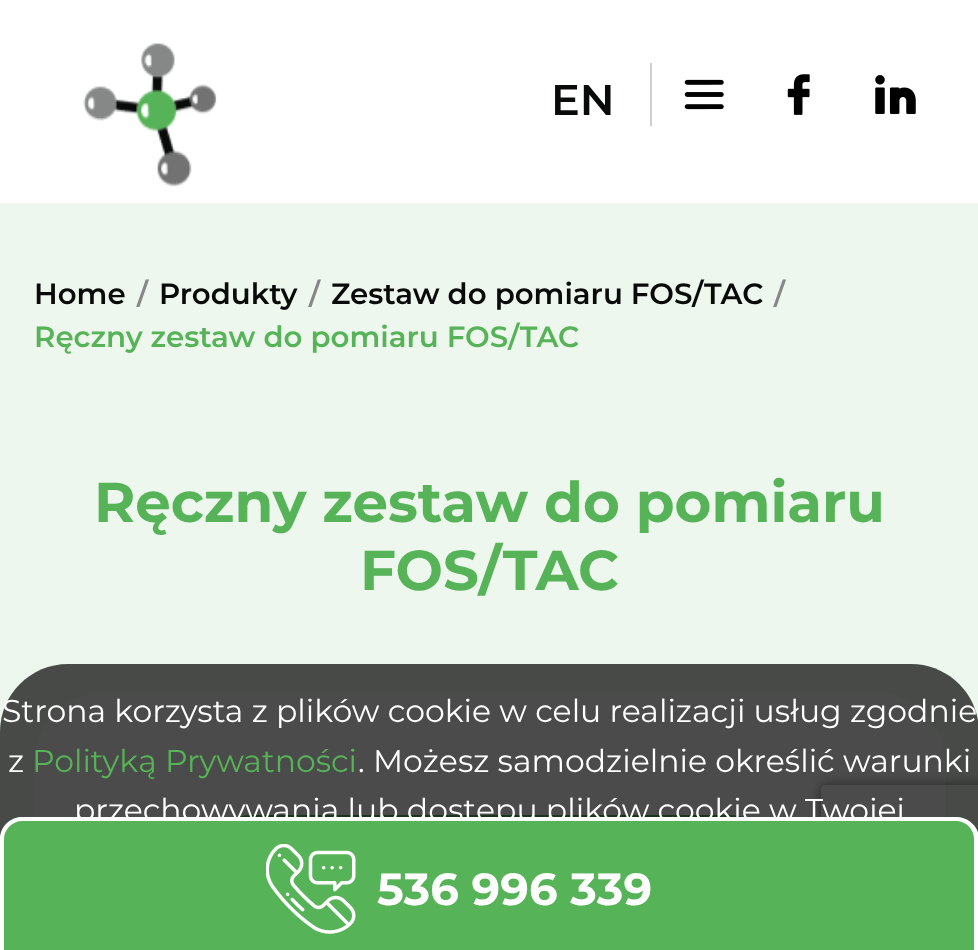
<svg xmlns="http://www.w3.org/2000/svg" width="978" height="950">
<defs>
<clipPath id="clip1"><path d="M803 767h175v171h-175zm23 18h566c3 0 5 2 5 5v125c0 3-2 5-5 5h-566c-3 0-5-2-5-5v-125c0-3 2-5 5-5z" clip-rule="evenodd"/></clipPath>
</defs>
<rect width="100%" height="100%" fill="#fff"/>
<image x="83" y="43" width="134" height="144" href="media/1.png"/>
<rect x="650" y="63" width="2" height="63" fill="#cecece"/>
<text x="551" y="115" style="font-family:Montserrat;font-size:43px;font-weight:600;fill:#090b0a">EN</text>
<image x="684" y="79" width="40" height="31" href="media/2.png"/>
<image x="787" y="74" width="23" height="41" href="media/3.png"/>
<image x="875" y="75" width="41" height="39" href="media/4.png"/>
<rect y="203" width="978" height="636" fill="#eef7ee"/>
<text x="34" y="304" style="font-family:Montserrat;font-size:29.25px;font-weight:600;fill:#090b0a">Home</text>
<text x="137" y="304" style="font-family:Montserrat;font-size:29.25px;font-weight:600;fill:#868787">/</text>
<text x="159" y="304" style="font-family:Montserrat;font-size:29.25px;font-weight:600;fill:#090b0a">Produkty</text>
<text x="309" y="304" style="font-family:Montserrat;font-size:29.25px;font-weight:600;fill:#868787">/</text>
<text x="331" y="304" style="font-family:Montserrat;font-size:29.25px;font-weight:600;fill:#090b0a">Zestaw do pomiaru FOS/TAC</text>
<text x="774" y="304" style="font-family:Montserrat;font-size:29.25px;font-weight:600;fill:#868787">/</text>
<text x="34" y="347" style="font-family:Montserrat;font-size:29.25px;font-weight:600;fill:#56b357">Ręczny zestaw do pomiaru FOS/TAC</text>
<text x="94" y="522" style="font-family:Montserrat;font-size:56.25px;font-weight:bold;fill:#56b357">Ręczny zestaw do pomiaru</text>
<text x="360" y="590" style="font-family:Montserrat;font-size:56.25px;font-weight:bold;fill:#56b357">FOS/TAC</text>
<rect x="34" y="693" width="911" height="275" rx="68" fill="#f7fbf7"/>
<rect x="198" y="815" width="585" height="108" rx="54" fill="#56b357"/>
<g clip-path="url(#clip1)">
<rect x="821" y="785" width="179" height="135" rx="5" fill="#808080" filter="blur(5.5px)"/>
</g>
<path d="M68 664h843c37.5 0 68 30.5 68 68v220h-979v-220c0-37.5 30.5-68 68-68z" fill="#000000b3"/>
<text x="2" y="722" style="font-family:Montserrat;font-size:31.5px;fill:#fff">Strona korzysta z plików cookie w celu realizacji usług zgodnie</text>
<text x="8" y="772" style="font-family:Montserrat;font-size:31.5px;fill:#fff">z</text>
<text x="32" y="772" style="font-family:Montserrat;font-size:31.5px;fill:#56b357">Polityką Prywatności</text>
<text x="358" y="772" style="font-family:Montserrat;font-size:31.5px;fill:#fff">. Możesz samodzielnie określić warunki</text>
<text x="74" y="821" style="font-family:Montserrat;font-size:31.5px;fill:#fff">przechowywania lub dostępu plików cookie w Twojej</text>
<path d="M23 817h933c12.5 0 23 10.5 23 23v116h-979v-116c0-12.5 10.5-23 23-23z" fill="#56b357"/>
<path d="M22 817h934c13 0 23 10 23 22v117h-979v-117c0-12 10-22 22-22zm0 4h934c10 0 18 8 18 18v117h-970v-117c0-10 9-18 18-18z" fill="#fff" fill-rule="evenodd"/>
<image x="266" y="844" width="90" height="90" href="media/5.png"/>
<text x="377" y="905" style="font-family:Montserrat;font-size:45px;font-weight:bold;fill:#fff">536 996 339</text>
</svg>
